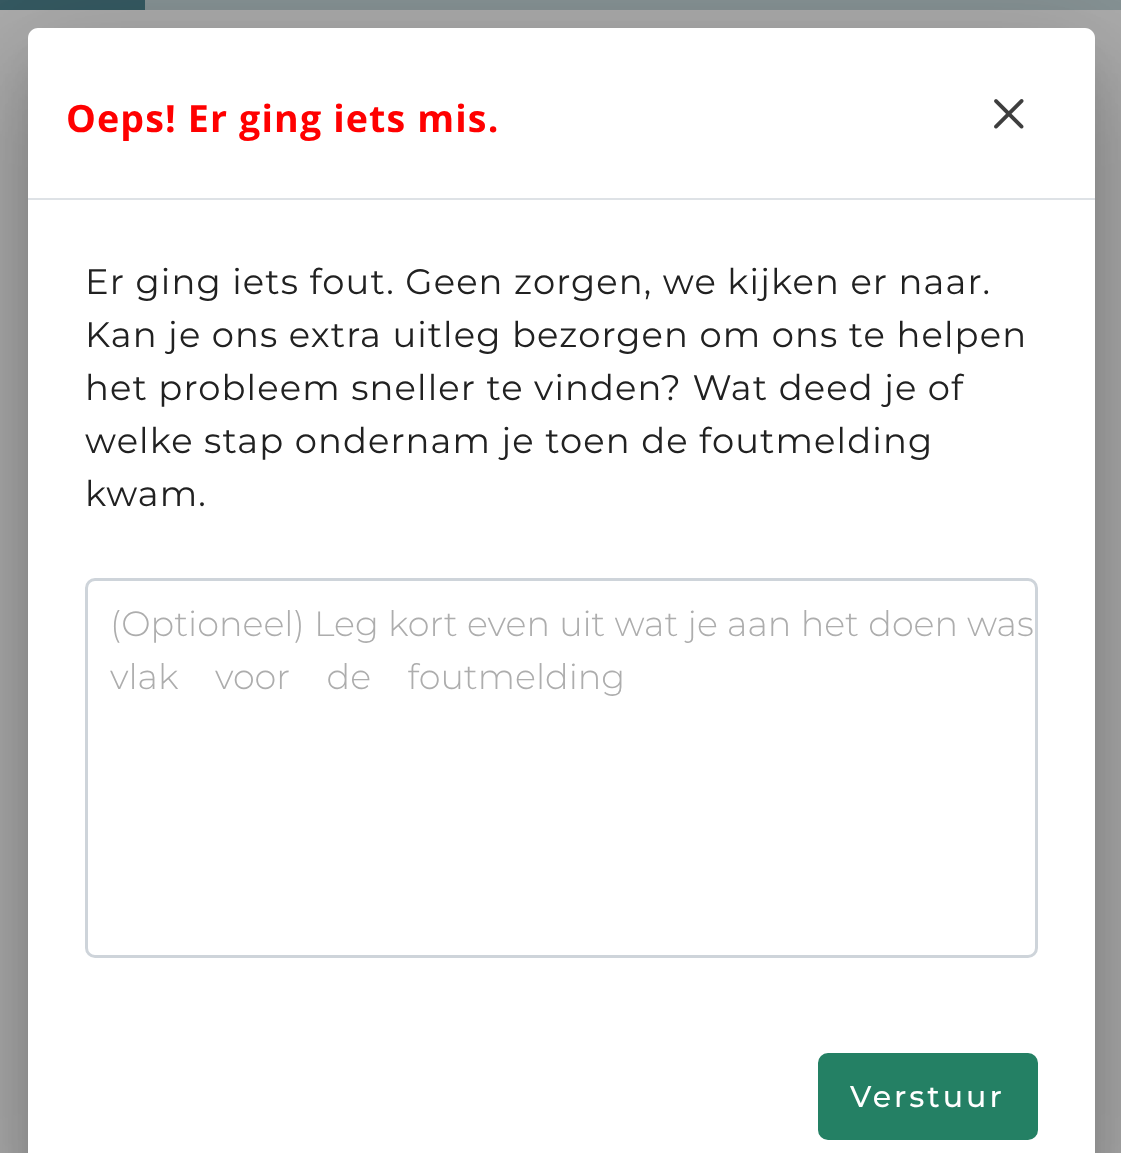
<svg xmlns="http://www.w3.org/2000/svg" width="1121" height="1153">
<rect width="100%" height="100%" fill="#adadad"/>
<rect x="145" width="976" height="10" fill="#879395"/>
<rect width="145" height="10" fill="#365a62"/>
<rect x="8" y="30" width="1107" height="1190" rx="30" fill="#0000001f" filter="blur(57.5px)"/>
<rect x="20" y="80" width="1083" height="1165" rx="18" fill="#00000024" filter="blur(47.5px)"/>
<rect x="45" y="73" width="1033" height="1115" fill="#00000033" filter="blur(19px)"/>
<path d="M38 28h1047c5.5 0 10 4.5 10 10v162h-1067v-162c0-5.5 4.5-10 10-10z" fill="#fff"/>
<rect x="28" y="198" width="1067" height="2" fill="#dee2e6"/>
<text x="66" y="132" style="font-family:Open Sans;font-size:37.6px;font-weight:bold;letter-spacing:1.13px;fill:#f00">Oeps! Er ging iets mis.</text>
<image x="994" y="99" width="30" height="30" href="media/1.png"/>
<rect x="28" y="200" width="1067" height="953" fill="#fff"/>
<text x="85" y="294" style="font-family:Montserrat;font-size:35.35px;letter-spacing:1.13px;fill:#212121">Er ging iets fout. Geen zorgen, we kijken er naar.</text>
<text x="85" y="347" style="font-family:Montserrat;font-size:35.35px;letter-spacing:1.13px;fill:#212121">Kan je ons extra uitleg bezorgen om ons te helpen</text>
<text x="85" y="400" style="font-family:Montserrat;font-size:35.35px;letter-spacing:1.13px;fill:#212121">het probleem sneller te vinden? Wat deed je of</text>
<text x="85" y="453" style="font-family:Montserrat;font-size:35.35px;letter-spacing:1.13px;fill:#212121">welke stap ondernam je toen de foutmelding</text>
<text x="85" y="506" style="font-family:Montserrat;font-size:35.35px;letter-spacing:1.13px;fill:#212121">kwam.</text>
<rect x="86.5" y="579.5" width="950" height="377" rx="8.5" fill="none" stroke="#ced4da" stroke-width="3"/>
<text x="110" y="636" word-spacing="0.25" style="font-family:Montserrat;font-size:35px;font-weight:300;fill:#adadad">(Optioneel) Leg kort even uit wat je aan het doen</text>
<text x="967" y="636" style="font-family:Montserrat;font-size:35px;font-weight:300;fill:#adadad">was</text>
<text x="110" y="689" word-spacing="27.5" style="font-family:Montserrat;font-size:35px;font-weight:300;fill:#adadad">vlak voor de foutmelding</text>
<rect x="819.5" y="1054.5" width="217" height="84" rx="8.5" fill="#248064" stroke="#248064" stroke-width="3"/>
<text x="850" y="1107" style="font-family:Montserrat;font-size:30px;font-weight:500;letter-spacing:3px;fill:#fff">Verstuur</text>
</svg>
